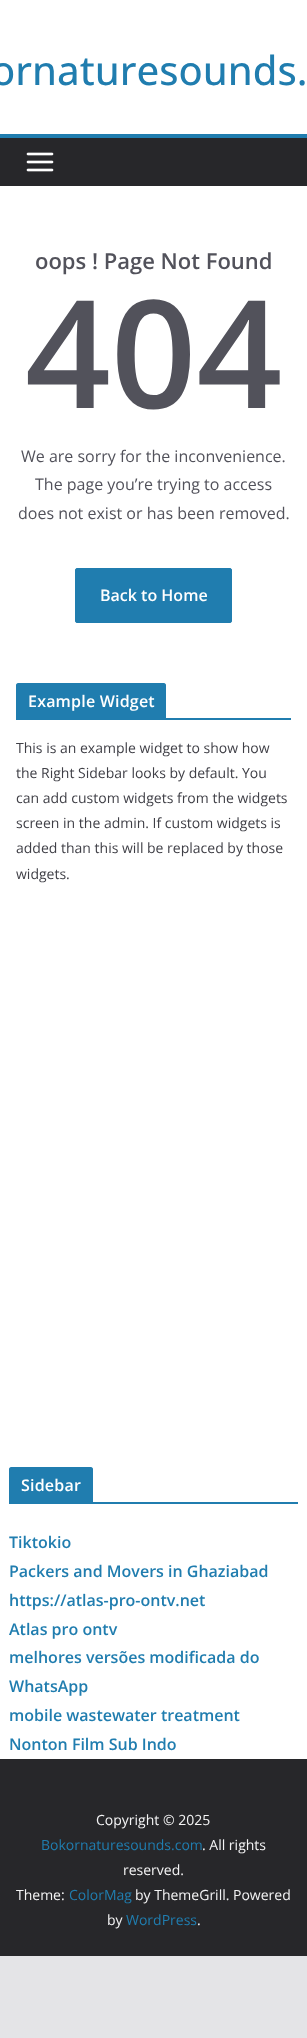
<svg xmlns="http://www.w3.org/2000/svg" width="307" height="2038">
<rect width="100%" height="100%" fill="#e4e4e7"/>
<rect width="307" height="134" fill="#fff"/>
<text x="-9" y="85" style="font-family:Open Sans;font-size:40px;font-weight:500;fill:#207daf">ornaturesounds.</text>
<rect y="138" width="307" height="48" fill="#27272a"/>
<rect y="134" width="307" height="4" fill="#207daf"/>
<image x="26" y="152" width="28" height="20" href="media/1.png"/>
<rect y="186" width="307" height="1573" fill="#fff"/>
<text x="35" y="269" style="font-family:Open Sans;font-size:22px;font-weight:600;fill:#52525b">oops ! Page Not Found</text>
<text x="25" y="408" style="font-family:Open Sans;font-size:150px;font-weight:600;fill:#52525b">404</text>
<text x="21" y="462" style="font-family:Open Sans;font-size:16px;fill:#52525b">We are sorry for the inconvenience.</text>
<text x="35" y="490" style="font-family:Open Sans;font-size:16px;fill:#52525b">The page you’re trying to access</text>
<text x="18" y="519" style="font-family:Open Sans;font-size:16px;fill:#52525b">does not exist or has been removed.</text>
<rect x="75.5" y="568.5" width="156" height="54" rx="1.5" fill="#207daf" stroke="#207daf"/>
<text x="100" y="601" style="font-family:Open Sans;font-size:16px;font-weight:600;fill:#fff">Back to Home</text>
<rect x="16" y="718" width="275" height="2" fill="#207daf"/>
<path d="M18 683h146c1 0 2 1 2 2v33h-150v-33c0-1 1-2 2-2z" fill="#207daf"/>
<text x="28" y="707" style="font-family:Open Sans;font-size:16px;font-weight:600;letter-spacing:0.2px;fill:#fff">Example Widget</text>
<text x="16" y="753" style="font-family:Open Sans;font-size:14px;fill:#3f3f46">This is an example widget to show how</text>
<text x="16" y="778" style="font-family:Open Sans;font-size:14px;fill:#3f3f46">the Right Sidebar looks by default. You</text>
<text x="16" y="803" style="font-family:Open Sans;font-size:14px;fill:#3f3f46">can add custom widgets from the widgets</text>
<text x="16" y="828" style="font-family:Open Sans;font-size:14px;fill:#3f3f46">screen in the admin. If custom widgets is</text>
<text x="16" y="853" style="font-family:Open Sans;font-size:14px;fill:#3f3f46">added than this will be replaced by those</text>
<text x="16" y="879" style="font-family:Open Sans;font-size:14px;fill:#3f3f46">widgets.</text>
<rect x="9" y="1502" width="289" height="2" fill="#207daf"/>
<path d="M11 1467h80c1 0 2 1 2 2v33h-84v-33c0-1 1-2 2-2z" fill="#207daf"/>
<text x="21" y="1491" style="font-family:Open Sans;font-size:16px;font-weight:600;letter-spacing:0.2px;fill:#fff">Sidebar</text>
<text x="9" y="1548" style="font-family:Open Sans;font-size:16px;font-weight:600;fill:#207daf">Tiktokio</text>
<text x="9" y="1577" style="font-family:Open Sans;font-size:16px;font-weight:600;fill:#207daf">Packers and Movers in Ghaziabad</text>
<text x="9" y="1606" style="font-family:Open Sans;font-size:16px;font-weight:600;fill:#207daf">https://atlas-pro-ontv.net</text>
<text x="9" y="1635" style="font-family:Open Sans;font-size:16px;font-weight:600;fill:#207daf">Atlas pro ontv</text>
<text x="9" y="1663" style="font-family:Open Sans;font-size:16px;font-weight:600;fill:#207daf">melhores versões modificada do</text>
<text x="9" y="1692" style="font-family:Open Sans;font-size:16px;font-weight:600;fill:#207daf">WhatsApp</text>
<text x="9" y="1721" style="font-family:Open Sans;font-size:16px;font-weight:600;fill:#207daf">mobile wastewater treatment</text>
<text x="9" y="1750" style="font-family:Open Sans;font-size:16px;font-weight:600;fill:#207daf">Nonton Film Sub Indo</text>
<rect y="1759" width="307" height="197" fill="#27272a"/>
<text x="96" y="1825" style="font-family:Open Sans;font-size:14px;fill:#f4f4f5">Copyright © 2025</text>
<text x="41" y="1850" style="font-family:Open Sans;font-size:14px;fill:#207daf">Bokornaturesounds.com</text>
<text x="202" y="1850" style="font-family:Open Sans;font-size:14px;fill:#f4f4f5">. All rights</text>
<text x="123" y="1875" style="font-family:Open Sans;font-size:14px;fill:#f4f4f5">reserved.</text>
<text x="16" y="1900" style="font-family:Open Sans;font-size:14px;fill:#f4f4f5">Theme:</text>
<text x="69" y="1900" style="font-family:Open Sans;font-size:14px;fill:#207daf">ColorMag</text>
<text x="135" y="1900" style="font-family:Open Sans;font-size:14px;fill:#f4f4f5">by ThemeGrill. Powered</text>
<text x="107" y="1925" style="font-family:Open Sans;font-size:14px;fill:#f4f4f5">by</text>
<text x="126" y="1925" style="font-family:Open Sans;font-size:14px;fill:#207daf">WordPress</text>
<text x="197" y="1925" style="font-family:Open Sans;font-size:14px;fill:#f4f4f5">.</text>
</svg>
